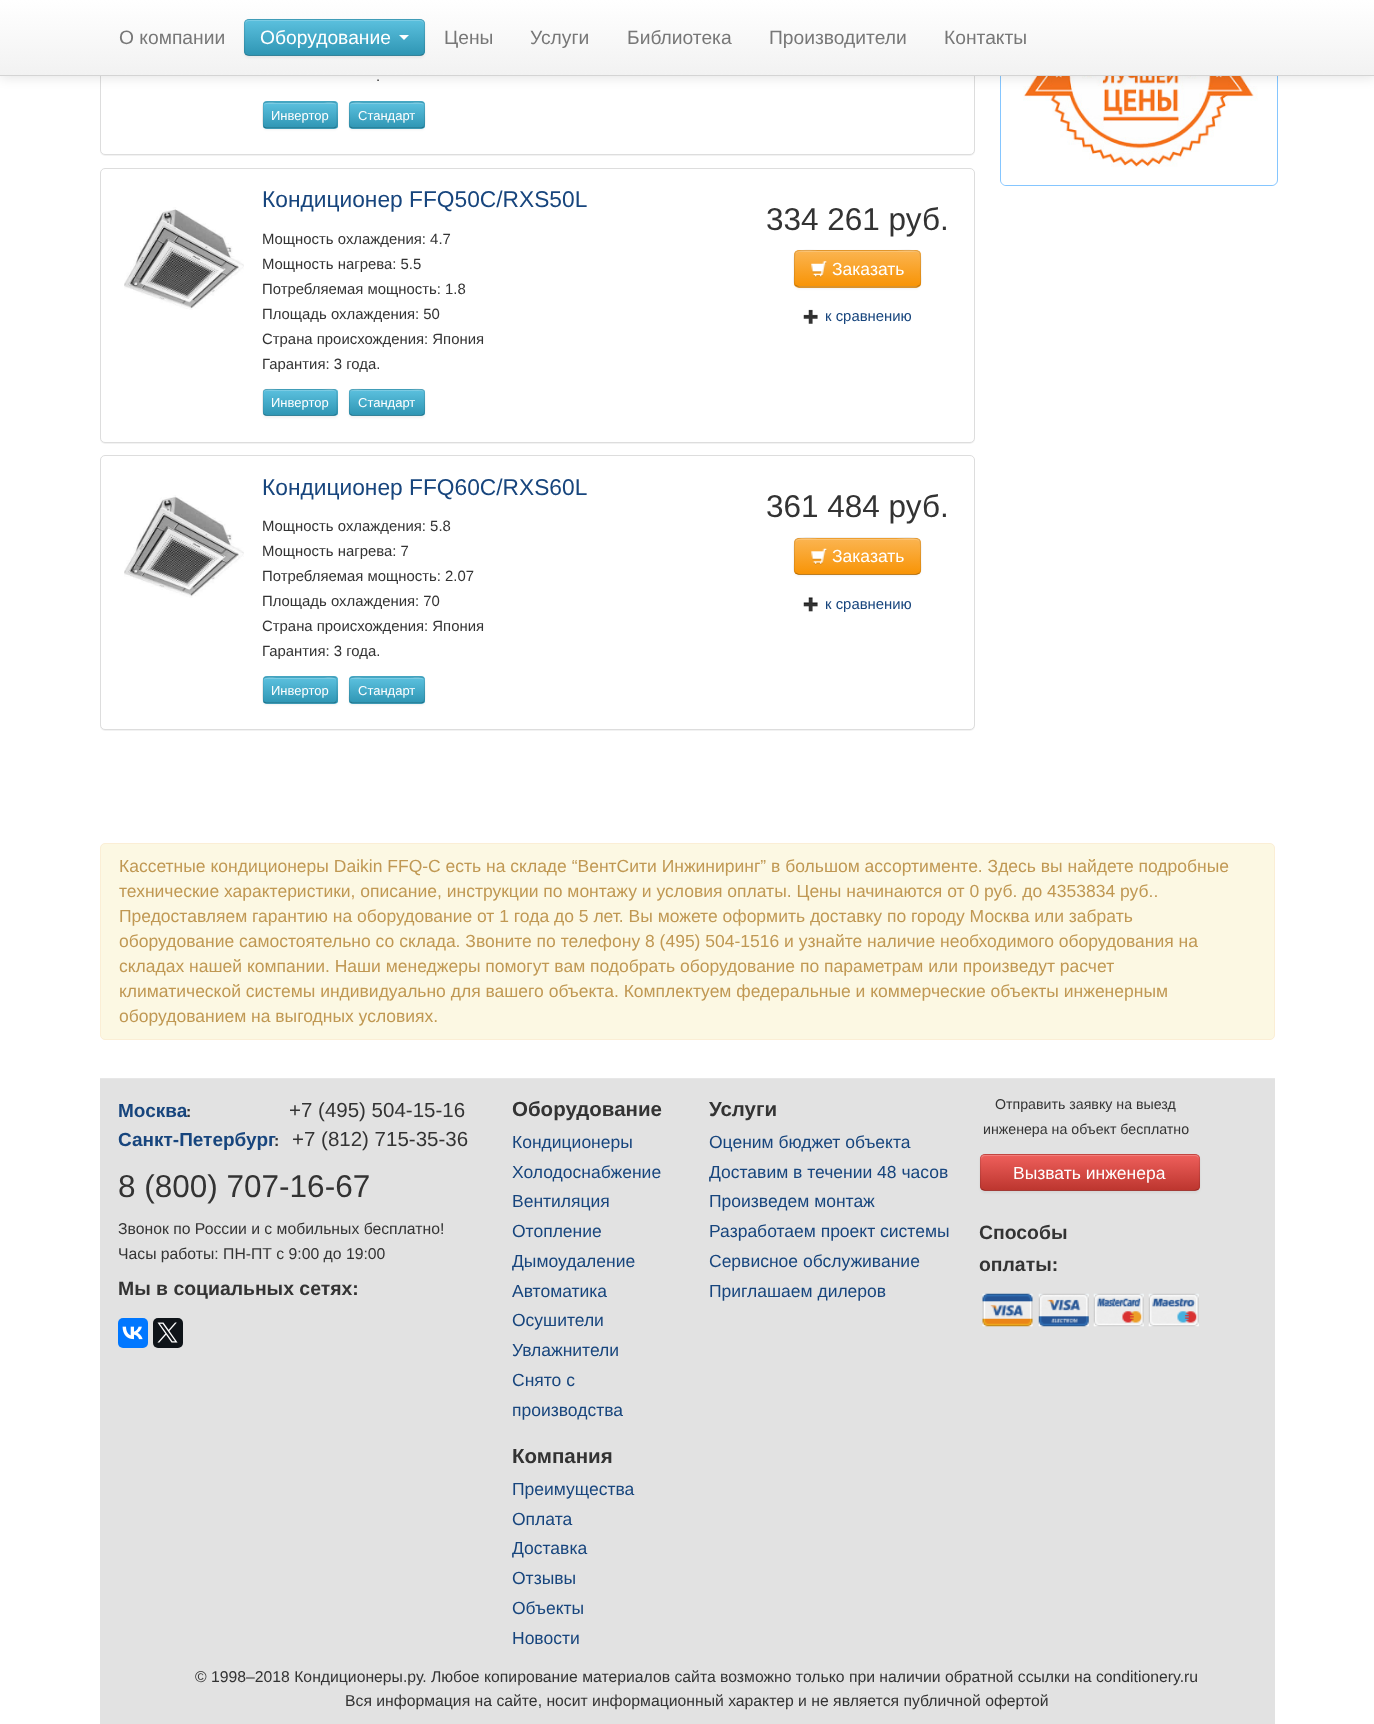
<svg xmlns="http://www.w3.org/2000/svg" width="1374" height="1724">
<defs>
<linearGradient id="g1" gradientUnits="userSpaceOnUse" x1="688" y1="0" x2="688" y2="75"><stop offset="0" stop-color="#fff"/><stop offset="1" stop-color="#f2f2f2"/></linearGradient>
<clipPath id="clip1"><rect x="244" y="19" width="181" height="37" rx="5"/></clipPath>
<linearGradient id="g2" gradientUnits="userSpaceOnUse" x1="334" y1="20" x2="334" y2="55"><stop offset="0" stop-color="#5bc0de"/><stop offset="1" stop-color="#2f96b4"/></linearGradient>
<clipPath id="clip2"><rect x="263" y="101" width="75" height="28" rx="4"/></clipPath>
<linearGradient id="g3" gradientUnits="userSpaceOnUse" x1="300" y1="103" x2="300" y2="128"><stop offset="0" stop-color="#5bc0de"/><stop offset="1" stop-color="#2f96b4"/></linearGradient>
<clipPath id="clip3"><rect x="349" y="101" width="76" height="28" rx="4"/></clipPath>
<linearGradient id="g4" gradientUnits="userSpaceOnUse" x1="387" y1="103" x2="387" y2="128"><stop offset="0" stop-color="#5bc0de"/><stop offset="1" stop-color="#2f96b4"/></linearGradient>
<clipPath id="clip4"><rect x="263" y="389" width="75" height="27" rx="4"/></clipPath>
<linearGradient id="g5" gradientUnits="userSpaceOnUse" x1="300" y1="390" x2="300" y2="415"><stop offset="0" stop-color="#5bc0de"/><stop offset="1" stop-color="#2f96b4"/></linearGradient>
<clipPath id="clip5"><rect x="349" y="389" width="76" height="27" rx="4"/></clipPath>
<linearGradient id="g6" gradientUnits="userSpaceOnUse" x1="387" y1="390" x2="387" y2="415"><stop offset="0" stop-color="#5bc0de"/><stop offset="1" stop-color="#2f96b4"/></linearGradient>
<clipPath id="clip6"><rect x="794" y="250" width="127" height="38" rx="5"/></clipPath>
<linearGradient id="g7" gradientUnits="userSpaceOnUse" x1="858" y1="251" x2="858" y2="286"><stop offset="0" stop-color="#fbb450"/><stop offset="1" stop-color="#f89406"/></linearGradient>
<clipPath id="clip7"><rect x="263" y="676" width="75" height="28" rx="4"/></clipPath>
<linearGradient id="g8" gradientUnits="userSpaceOnUse" x1="300" y1="678" x2="300" y2="703"><stop offset="0" stop-color="#5bc0de"/><stop offset="1" stop-color="#2f96b4"/></linearGradient>
<clipPath id="clip8"><rect x="349" y="676" width="76" height="28" rx="4"/></clipPath>
<linearGradient id="g9" gradientUnits="userSpaceOnUse" x1="387" y1="678" x2="387" y2="703"><stop offset="0" stop-color="#5bc0de"/><stop offset="1" stop-color="#2f96b4"/></linearGradient>
<clipPath id="clip9"><rect x="794" y="538" width="127" height="37" rx="5"/></clipPath>
<linearGradient id="g10" gradientUnits="userSpaceOnUse" x1="858" y1="539" x2="858" y2="574"><stop offset="0" stop-color="#fbb450"/><stop offset="1" stop-color="#f89406"/></linearGradient>
<clipPath id="clip10"><rect x="980" y="1154" width="220" height="37" rx="5"/></clipPath>
<linearGradient id="g11" gradientUnits="userSpaceOnUse" x1="1090" y1="1155" x2="1090" y2="1190"><stop offset="0" stop-color="#ee5f5b"/><stop offset="1" stop-color="#bd362f"/></linearGradient>
</defs>
<rect width="100%" height="100%" fill="#fff"/>
<rect x="100" y="-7" width="875" height="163" rx="5" fill="#0000000d" filter="blur(0.5px)"/>
<rect x="100.5" y="-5.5" width="874" height="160" rx="4.5" fill="#fff" stroke="#ddd"/>
<rect x="1000.5" y="-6.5" width="277" height="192" rx="5.5" fill="none" stroke="#85c6ff"/>
<image x="1001" y="76" width="273" height="109" href="media/7.png"/>
<rect y="1" width="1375" height="77" fill="#0000001a" filter="blur(6px)"/>
<rect width="1374" height="75" fill="url(#g1)"/>
<rect y="75" width="1374" height="1" fill="#d4d4d4"/>
<text x="119" y="44" style="font-family:Liberation Sans;font-size:19.25px;fill:#777">О компании</text>
<rect x="244" y="20" width="181" height="38" rx="5" fill="#0000000d" filter="blur(1px)"/>
<rect x="244" y="19" width="181" height="37" rx="5" fill="#49afcd"/>
<g clip-path="url(#clip1)">
<rect x="244" y="20" width="181" height="35" fill="url(#g2)"/>
</g>
<path d="M249 21h171c2 0 4 2 4 4v-1c0-2-2-4-4-4h-171c-2 0-4 2-4 4v1c0-2 2-4 4-4z" fill="#7bcce4"/>
<path d="M423 54.5c-.5 .5-2 1-3 1h-171c-1.5 0-2.5-.5-3.5-1" fill="none" stroke="#00000040" stroke-width="1.2"/>
<path d="M245.5 54.5c-.5-1-1-2-1-3.5v-27c0-1.5 .5-2.5 1-3.5c1-.5 2-1 3.5-1h171c1 0 2.5 .5 3 1c1 1 1.5 2 1.5 3.5v27c0 1.5-.5 2.5-1.5 3.5" fill="none" stroke="#0000001a" stroke-width="1.2"/>
<text x="260" y="44" style="font-family:Liberation Sans;font-size:19.25px;fill:#fff">Оборудование</text>
<path d="M399 35h10l-5 5z" fill="#fff"/>
<text x="444" y="44" style="font-family:Liberation Sans;font-size:19.25px;fill:#777">Цены</text>
<text x="530" y="44" style="font-family:Liberation Sans;font-size:19.25px;fill:#777">Услуги</text>
<text x="627" y="44" style="font-family:Liberation Sans;font-size:19.25px;fill:#777">Библиотека</text>
<text x="769" y="44" style="font-family:Liberation Sans;font-size:19.25px;fill:#777">Производители</text>
<text x="944" y="44" style="font-family:Liberation Sans;font-size:19.25px;fill:#777">Контакты</text>
<text x="376" y="81" style="font-family:Liberation Sans;font-size:14.9px;fill:#333">.</text>
<rect x="263" y="103" width="75" height="27" rx="4" fill="#0000000d" filter="blur(1px)"/>
<rect x="263" y="101" width="75" height="28" rx="4" fill="#49afcd"/>
<g clip-path="url(#clip2)">
<rect x="263" y="103" width="75" height="25" fill="url(#g3)"/>
</g>
<path d="M266 104h68c1 0 2 1 2 2c0-6-12-3-14-3h-44c-2 0-14-3-14 3c0-1 1-2 2-2z" fill="#ffffff33"/>
<path d="M336 127l-2 1h-68l-2-1" fill="none" stroke="#00000040" stroke-width="1.2"/>
<path d="M264 127c-2-2-1-9.5-1-12c0-15.5-2-13 14.5-13h45c16.5 0 14.5-2.5 14.5 13c0 2.5 1 10-1 12" fill="none" stroke="#0000001a" stroke-width="1.2"/>
<text x="271" y="120" style="font-family:Liberation Sans;font-size:13px;fill:#fff">Инвертор</text>
<rect x="349" y="103" width="76" height="27" rx="4" fill="#0000000d" filter="blur(1px)"/>
<rect x="349" y="101" width="76" height="28" rx="4" fill="#49afcd"/>
<g clip-path="url(#clip3)">
<rect x="349" y="103" width="76" height="25" fill="url(#g4)"/>
</g>
<path d="M352 104h69c2 0 3 1 3 2c0-6-13-3-14-3h-46c-1 0-14-3-14 3c0-1 1-2 2-2z" fill="#ffffff33"/>
<path d="M423.5 127l-2 1h-69.5l-1.5-1" fill="none" stroke="#00000040" stroke-width="1.2"/>
<path d="M350.5 127c-2.5-2-1-6.5-1-8.5c0-18.5-3.5-16.5 14.5-16.5h46c16.5 0 14.5-2.5 14.5 13c0 2.5 1 10-1 12" fill="none" stroke="#0000001a" stroke-width="1.2"/>
<text x="358" y="120" style="font-family:Liberation Sans;font-size:13px;fill:#fff">Стандарт</text>
<rect x="100" y="169" width="875" height="275" rx="5" fill="#0000000d" filter="blur(0.5px)"/>
<rect x="100.5" y="168.5" width="874" height="274" rx="4.5" fill="#fff" stroke="#ddd"/>
<image x="124" y="207" width="120" height="103" href="media/1.png"/>
<text x="262" y="207" style="font-family:Liberation Sans;font-size:22.75px;fill:#17457d">Кондиционер FFQ50C/RXS50L</text>
<text x="262" y="244" style="font-family:Liberation Sans;font-size:14.9px;fill:#333">Мощность охлаждения: 4.7</text>
<text x="262" y="269" style="font-family:Liberation Sans;font-size:14.9px;fill:#333">Мощность нагрева: 5.5</text>
<text x="262" y="294" style="font-family:Liberation Sans;font-size:14.9px;fill:#333">Потребляемая мощность: 1.8</text>
<text x="262" y="319" style="font-family:Liberation Sans;font-size:14.9px;fill:#333">Площадь охлаждения: 50</text>
<text x="262" y="344" style="font-family:Liberation Sans;font-size:14.9px;fill:#333">Страна происхождения: Япония</text>
<text x="262" y="369" style="font-family:Liberation Sans;font-size:14.9px;fill:#333">Гарантия: 3 года.</text>
<rect x="263" y="390" width="75" height="28" rx="4" fill="#0000000d" filter="blur(1px)"/>
<rect x="263" y="389" width="75" height="27" rx="4" fill="#49afcd"/>
<g clip-path="url(#clip4)">
<rect x="263" y="390" width="75" height="25" fill="url(#g5)"/>
</g>
<path d="M266 391h68c1 0 2 1 2 3c0-7-8-4-14-4h-44c-6 0-14-3-14 4c0-2 1-3 2-3z" fill="#ffffff33"/>
<path d="M336 414.5l-2 1h-68l-2-1" fill="none" stroke="#00000040" stroke-width="1.2"/>
<path d="M264 414.5c-2-2-1-9.5-1-12c0-15.5-2-13 14.5-13h45c16.5 0 14.5-2.5 14.5 13c0 2.5 1 10-1 12" fill="none" stroke="#0000001a" stroke-width="1.2"/>
<text x="271" y="407" style="font-family:Liberation Sans;font-size:13px;fill:#fff">Инвертор</text>
<rect x="349" y="390" width="76" height="28" rx="4" fill="#0000000d" filter="blur(1px)"/>
<rect x="349" y="389" width="76" height="27" rx="4" fill="#49afcd"/>
<g clip-path="url(#clip5)">
<rect x="349" y="390" width="76" height="25" fill="url(#g6)"/>
</g>
<path d="M352 391h69c2 0 3 1 3 3c0-7-8-4-14-4h-46c-6 0-14-3-14 4c0-2 1-3 2-3z" fill="#ffffff33"/>
<path d="M423.5 414.5l-2 1h-69.5l-1.5-1" fill="none" stroke="#00000040" stroke-width="1.2"/>
<path d="M350.5 414.5c-2.5-2-1-6.5-1-8.5c0-18.5-3.5-16.5 14.5-16.5h46c16.5 0 14.5-2.5 14.5 13c0 2.5 1 10-1 12" fill="none" stroke="#0000001a" stroke-width="1.2"/>
<text x="358" y="407" style="font-family:Liberation Sans;font-size:13px;fill:#fff">Стандарт</text>
<text x="766" y="230" style="font-family:Liberation Sans;font-size:31.5px;fill:#333">334 261 руб.</text>
<rect x="794" y="251" width="127" height="38" rx="5" fill="#0000000d" filter="blur(1px)"/>
<rect x="794" y="250" width="127" height="38" rx="5" fill="#faa732"/>
<g clip-path="url(#clip6)">
<rect x="794" y="251" width="127" height="35" fill="url(#g7)"/>
</g>
<path d="M799 252h117c2 0 4 2 4 4c0-10-21-5-24-5h-78c-2 0-23-5-23 5c0-2 2-4 4-4z" fill="#ffffff33"/>
<path d="M919.5 285.5l-3 1.5h-98h-19.5l-3.5-1.5" fill="none" stroke="#00000040" stroke-width="1.2"/>
<path d="M795.5 285.5c-2.5-2.5-1-9-1-12c0-27-4.5-23 24-23h78c28.5 0 24-4 24 23c0 3 1.5 9.5-1 12" fill="none" stroke="#0000001a" stroke-width="1.2"/>
<image x="811" y="261" width="16" height="17" href="media/2.png"/>
<text x="832" y="275" style="font-family:Liberation Sans;font-size:17.5px;fill:#fff">Заказать</text>
<image x="803" y="309" width="15" height="15" href="media/3.png"/>
<text x="825" y="321" style="font-family:Liberation Sans;font-size:14.9px;fill:#17457d">к сравнению</text>
<rect x="100" y="456" width="875" height="275" rx="5" fill="#0000000d" filter="blur(0.5px)"/>
<rect x="100.5" y="455.5" width="874" height="274" rx="4.5" fill="#fff" stroke="#ddd"/>
<image x="124" y="495" width="120" height="103" href="media/4.png"/>
<text x="262" y="495" style="font-family:Liberation Sans;font-size:22.75px;fill:#17457d">Кондиционер FFQ60C/RXS60L</text>
<text x="262" y="531" style="font-family:Liberation Sans;font-size:14.9px;fill:#333">Мощность охлаждения: 5.8</text>
<text x="262" y="556" style="font-family:Liberation Sans;font-size:14.9px;fill:#333">Мощность нагрева: 7</text>
<text x="262" y="581" style="font-family:Liberation Sans;font-size:14.9px;fill:#333">Потребляемая мощность: 2.07</text>
<text x="262" y="606" style="font-family:Liberation Sans;font-size:14.9px;fill:#333">Площадь охлаждения: 70</text>
<text x="262" y="631" style="font-family:Liberation Sans;font-size:14.9px;fill:#333">Страна происхождения: Япония</text>
<text x="262" y="656" style="font-family:Liberation Sans;font-size:14.9px;fill:#333">Гарантия: 3 года.</text>
<rect x="263" y="678" width="75" height="27" rx="4" fill="#0000000d" filter="blur(1px)"/>
<rect x="263" y="676" width="75" height="28" rx="4" fill="#49afcd"/>
<g clip-path="url(#clip7)">
<rect x="263" y="678" width="75" height="25" fill="url(#g8)"/>
</g>
<path d="M266 679h68c1 0 2 1 2 2c0-6-12-3-14-3h-44c-2 0-14-3-14 3c0-1 1-2 2-2z" fill="#ffffff33"/>
<path d="M336 702l-2 1h-68l-2-1" fill="none" stroke="#00000040" stroke-width="1.2"/>
<path d="M264 702c-2-2-1-9.5-1-12c0-15.5-2-13 14.5-13h45c16.5 0 14.5-2.5 14.5 13c0 2.5 1 10-1 12" fill="none" stroke="#0000001a" stroke-width="1.2"/>
<text x="271" y="695" style="font-family:Liberation Sans;font-size:13px;fill:#fff">Инвертор</text>
<rect x="349" y="678" width="76" height="27" rx="4" fill="#0000000d" filter="blur(1px)"/>
<rect x="349" y="676" width="76" height="28" rx="4" fill="#49afcd"/>
<g clip-path="url(#clip8)">
<rect x="349" y="678" width="76" height="25" fill="url(#g9)"/>
</g>
<path d="M352 679h69c2 0 3 1 3 2c0-6-13-3-14-3h-46c-1 0-14-3-14 3c0-1 1-2 2-2z" fill="#ffffff33"/>
<path d="M423.5 702l-2 1h-69.5l-1.5-1" fill="none" stroke="#00000040" stroke-width="1.2"/>
<path d="M350.5 702c-2.5-2-1-6.5-1-8.5c0-18.5-3.5-16.5 14.5-16.5h46c16.5 0 14.5-2.5 14.5 13c0 2.5 1 10-1 12" fill="none" stroke="#0000001a" stroke-width="1.2"/>
<text x="358" y="695" style="font-family:Liberation Sans;font-size:13px;fill:#fff">Стандарт</text>
<text x="766" y="517" style="font-family:Liberation Sans;font-size:31.5px;fill:#333">361 484 руб.</text>
<rect x="794" y="539" width="127" height="37" rx="5" fill="#0000000d" filter="blur(1px)"/>
<rect x="794" y="538" width="127" height="37" rx="5" fill="#faa732"/>
<g clip-path="url(#clip9)">
<rect x="794" y="539" width="127" height="35" fill="url(#g10)"/>
</g>
<path d="M799 540h117c2 0 4 2 4 4c0-10-21-5-24-5h-78c-2 0-23-5-23 5c0-2 2-4 4-4z" fill="#ffffff33"/>
<path d="M919.5 573l-3.5 1.5h-117.5l-3-1.5" fill="none" stroke="#00000040" stroke-width="1.2"/>
<path d="M795.5 573c-2.5-2.5-1-9-1-12c0-27-4.5-23 24-23h78c28.5 0 24-4 24 23c0 3 1.5 9.5-1 12" fill="none" stroke="#0000001a" stroke-width="1.2"/>
<image x="811" y="548" width="16" height="17" href="media/5.png"/>
<text x="832" y="562" style="font-family:Liberation Sans;font-size:17.5px;fill:#fff">Заказать</text>
<image x="803" y="597" width="15" height="15" href="media/6.png"/>
<text x="825" y="609" style="font-family:Liberation Sans;font-size:14.9px;fill:#17457d">к сравнению</text>
<rect x="100.5" y="843.5" width="1174" height="196" rx="4.5" fill="#fcf8e3" stroke="#fbeed5"/>
<text x="119" y="872" style="font-family:Liberation Sans;font-size:17.5px;fill:#c09853">Кассетные кондиционеры Daikin FFQ-C есть на складе “ВентСити Инжиниринг” в большом ассортименте. Здесь вы найдете подробные</text>
<text x="119" y="897" style="font-family:Liberation Sans;font-size:17.5px;fill:#c09853">технические характеристики, описание, инструкции по монтажу и условия оплаты. Цены начинаются от 0 руб. до 4353834 руб..</text>
<text x="119" y="922" style="font-family:Liberation Sans;font-size:17.5px;fill:#c09853">Предоставляем гарантию на оборудование от 1 года до 5 лет. Вы можете оформить доставку по городу Москва или забрать</text>
<text x="119" y="947" style="font-family:Liberation Sans;font-size:17.5px;fill:#c09853">оборудование самостоятельно со склада. Звоните по телефону 8 (495) 504-1516 и узнайте наличие необходимого оборудования на</text>
<text x="119" y="972" style="font-family:Liberation Sans;font-size:17.5px;fill:#c09853">складах нашей компании. Наши менеджеры помогут вам подобрать оборудование по параметрам или произведут расчет</text>
<text x="119" y="997" style="font-family:Liberation Sans;font-size:17.5px;fill:#c09853">климатической системы индивидуально для вашего объекта. Комплектуем федеральные и коммерческие объекты инженерным</text>
<text x="119" y="1022" style="font-family:Liberation Sans;font-size:17.5px;fill:#c09853">оборудованием на выгодных условиях.</text>
<rect x="100" y="1079" width="1175" height="645" fill="#e2e2e2"/>
<rect x="100" y="1078" width="1175" height="1" fill="#e7e7e7"/>
<text x="118" y="1117" style="font-family:Liberation Sans;font-size:19px;font-weight:bold;fill:#17457d">Москва</text>
<text x="186" y="1117" style="font-family:Liberation Sans;font-size:15.75px;font-weight:bold;fill:#333">:</text>
<text x="289" y="1117" style="font-family:Liberation Sans;font-size:20.5px;fill:#333">+7 (495) 504-15-16</text>
<text x="118" y="1146" style="font-family:Liberation Sans;font-size:19px;font-weight:bold;fill:#17457d">Санкт-Петербург</text>
<text x="274" y="1146" style="font-family:Liberation Sans;font-size:15.75px;font-weight:bold;fill:#333">:</text>
<text x="292" y="1146" style="font-family:Liberation Sans;font-size:20.5px;fill:#333">+7 (812) 715-35-36</text>
<text x="118" y="1197" style="font-family:Liberation Sans;font-size:31.5px;fill:#333">8 (800) 707-16-67</text>
<text x="118" y="1234" style="font-family:Liberation Sans;font-size:15.75px;fill:#333">Звонок по России и с мобильных бесплатно!</text>
<text x="118" y="1259" style="font-family:Liberation Sans;font-size:15.75px;fill:#333">Часы работы: ПН-ПТ с 9:00 до 19:00</text>
<text x="118" y="1295" style="font-family:Liberation Sans;font-size:19.4px;font-weight:bold;fill:#333">Мы в социальных сетях:</text>
<rect x="118" y="1318" width="30" height="30" rx="5" fill="#07f"/>
<image x="122" y="1326" width="21" height="14" href="media/8.png"/>
<rect x="153" y="1318" width="30" height="30" rx="5" fill="#0f1419"/>
<image x="157" y="1322" width="21" height="21" href="media/9.png"/>
<text x="512" y="1116" style="font-family:Liberation Sans;font-size:20.5px;font-weight:bold;fill:#333">Оборудование</text>
<text x="512" y="1148" style="font-family:Liberation Sans;font-size:17.5px;fill:#17457d">Кондиционеры</text>
<text x="512" y="1178" style="font-family:Liberation Sans;font-size:17.5px;fill:#17457d">Холодоснабжение</text>
<text x="512" y="1207" style="font-family:Liberation Sans;font-size:17.5px;fill:#17457d">Вентиляция</text>
<text x="512" y="1237" style="font-family:Liberation Sans;font-size:17.5px;fill:#17457d">Отопление</text>
<text x="512" y="1267" style="font-family:Liberation Sans;font-size:17.5px;fill:#17457d">Дымоудаление</text>
<text x="512" y="1297" style="font-family:Liberation Sans;font-size:17.5px;fill:#17457d">Автоматика</text>
<text x="512" y="1326" style="font-family:Liberation Sans;font-size:17.5px;fill:#17457d">Осушители</text>
<text x="512" y="1356" style="font-family:Liberation Sans;font-size:17.5px;fill:#17457d">Увлажнители</text>
<text x="512" y="1386" style="font-family:Liberation Sans;font-size:17.5px;fill:#17457d">Снято с</text>
<text x="512" y="1416" style="font-family:Liberation Sans;font-size:17.5px;fill:#17457d">производства</text>
<text x="512" y="1463" style="font-family:Liberation Sans;font-size:20.5px;font-weight:bold;fill:#333">Компания</text>
<text x="512" y="1495" style="font-family:Liberation Sans;font-size:17.5px;fill:#17457d">Преимущества</text>
<text x="512" y="1525" style="font-family:Liberation Sans;font-size:17.5px;fill:#17457d">Оплата</text>
<text x="512" y="1554" style="font-family:Liberation Sans;font-size:17.5px;fill:#17457d">Доставка</text>
<text x="512" y="1584" style="font-family:Liberation Sans;font-size:17.5px;fill:#17457d">Отзывы</text>
<text x="512" y="1614" style="font-family:Liberation Sans;font-size:17.5px;fill:#17457d">Объекты</text>
<text x="512" y="1644" style="font-family:Liberation Sans;font-size:17.5px;fill:#17457d">Новости</text>
<text x="709" y="1116" style="font-family:Liberation Sans;font-size:20.5px;font-weight:bold;fill:#333">Услуги</text>
<text x="709" y="1148" style="font-family:Liberation Sans;font-size:17.5px;fill:#17457d">Оценим бюджет объекта</text>
<text x="709" y="1178" style="font-family:Liberation Sans;font-size:17.5px;fill:#17457d">Доставим в течении 48 часов</text>
<text x="709" y="1207" style="font-family:Liberation Sans;font-size:17.5px;fill:#17457d">Произведем монтаж</text>
<text x="709" y="1237" style="font-family:Liberation Sans;font-size:17.5px;fill:#17457d">Разработаем проект системы</text>
<text x="709" y="1267" style="font-family:Liberation Sans;font-size:17.5px;fill:#17457d">Сервисное обслуживание</text>
<text x="709" y="1297" style="font-family:Liberation Sans;font-size:17.5px;fill:#17457d">Приглашаем дилеров</text>
<text x="995" y="1109" style="font-family:Liberation Sans;font-size:14.2px;fill:#333">Отправить заявку на выезд</text>
<text x="983" y="1134" style="font-family:Liberation Sans;font-size:14.2px;fill:#333">инженера на объект бесплатно</text>
<rect x="980" y="1155" width="220" height="38" rx="5" fill="#0000000d" filter="blur(1px)"/>
<rect x="980" y="1154" width="220" height="37" rx="5" fill="#da4f49"/>
<g clip-path="url(#clip10)">
<rect x="980" y="1155" width="220" height="35" fill="url(#g11)"/>
</g>
<path d="M985 1156h210c2 0 4 2 4 4c0-3-1-5-4-5h-212c-2 1-2 3-2 5c0-2 2-4 4-4z" fill="#f17e7b"/>
<path d="M1198 1189.5l-3 1h-210.5l-2.5-1" fill="none" stroke="#00000040" stroke-width="1.2"/>
<path d="M982 1189.5c-1-1-1.5-2-1.5-3.5v-27c0-1.5 .5-2.5 1.5-3.5c.5-.5 2-1 3-1h210c1 0 2.5 .5 3 1c1 1 1.5 2 1.5 3.5v27c0 1.5-.5 2.5-1.5 3.5" fill="none" stroke="#0000001a" stroke-width="1.2"/>
<text x="1013" y="1179" style="font-family:Liberation Sans;font-size:17.5px;fill:#fff">Вызвать инженера</text>
<text x="979" y="1239" style="font-family:Liberation Sans;font-size:19.4px;font-weight:bold;fill:#333">Способы</text>
<text x="979" y="1271" style="font-family:Liberation Sans;font-size:19.4px;font-weight:bold;fill:#333">оплаты:</text>
<image x="982" y="1293" width="217" height="34" href="media/10.png"/>
<text x="195" y="1682" style="font-family:Liberation Sans;font-size:15.75px;fill:#333">© 1998–2018 Кондиционеры.ру. Любое копирование материалов сайта возможно только при наличии обратной ссылки на conditionery.ru</text>
<text x="345" y="1706" style="font-family:Liberation Sans;font-size:15.75px;fill:#333">Вся информация на сайте, носит информационный характер и не является публичной офертой</text>
</svg>
